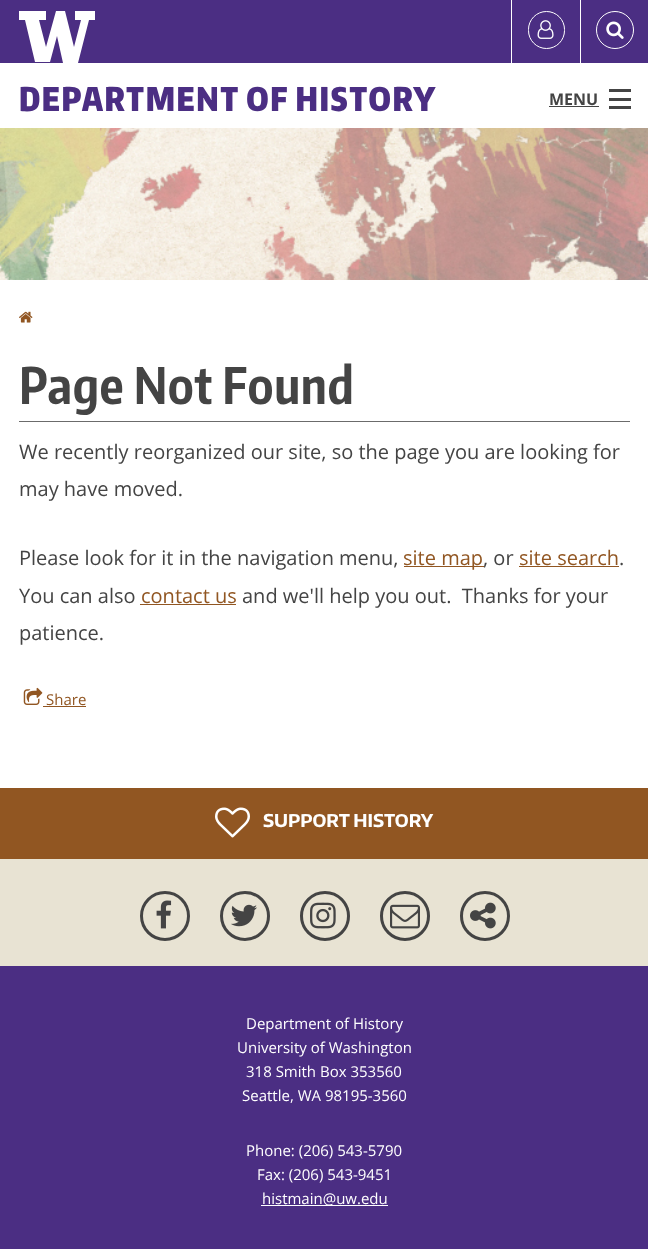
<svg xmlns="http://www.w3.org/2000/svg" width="648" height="1249">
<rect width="100%" height="100%" fill="#fff"/>
<rect width="648" height="63" fill="#4b2e83"/>
<path d="M75 11v9h6l-7 27l-9-36h-9l-10 36l-7-27h7v-9h-27v9h6l10 42h15l7-26l6 27h15l11-43h6v-9z" fill="#fff"/>
<rect x="511" width="1" height="63" fill="#fff"/>
<rect x="528.5" y="11.5" width="36" height="37" rx="18" fill="none" stroke="#fff"/>
<image x="537" y="20" width="17" height="19" href="media/1.png"/>
<rect x="580" width="1" height="63" fill="#fff"/>
<circle cx="615" cy="30" r="18.5" fill="none" stroke="#fff"/>
<image x="606" y="21" width="18" height="18" href="media/2.png"/>
<text x="19" y="111" style="font-family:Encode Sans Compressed;font-size:32.5px;font-weight:900;letter-spacing:1.6px;fill:#4b2e83">DEPARTMENT OF HISTORY</text>
<text x="549" y="105" style="font-family:Open Sans;font-size:16px;font-weight:bold;fill:#444">MENU</text>
<rect x="549" y="106" width="50" height="1" fill="#444"/>
<rect x="609" y="106" width="22" height="3" fill="#444"/>
<rect x="609" y="98" width="22" height="3" fill="#444"/>
<rect x="609" y="89" width="22" height="3" fill="#444"/>
<image x="0" y="128" width="648" height="152" href="media/3.png"/>
<image x="19" y="311" width="14" height="12" href="media/4.png"/>
<text x="19" y="404" style="font-family:Encode Sans Compressed;font-size:50px;font-weight:bold;letter-spacing:0.6px;fill:#444">Page Not Found</text>
<rect x="19" y="421" width="611" height="1" fill="#6b6b6b"/>
<text x="19" y="459" style="font-family:Open Sans;font-size:20px;fill:#444">We recently reorganized our site, so the page you are looking for</text>
<text x="19" y="496" style="font-family:Open Sans;font-size:20px;fill:#444">may have moved.</text>
<text x="19" y="565" style="font-family:Open Sans;font-size:20px;fill:#444">Please look for it in the navigation menu,</text>
<rect x="404" y="566" width="80" height="1" fill="#915622"/>
<text x="403" y="565" style="font-family:Open Sans;font-size:20px;fill:#915622">site map</text>
<text x="483" y="565" style="font-family:Open Sans;font-size:20px;fill:#444">, or</text>
<text x="519" y="565" style="font-family:Open Sans;font-size:20px;fill:#915622">site search</text>
<rect x="519" y="566" width="100" height="1" fill="#915622"/>
<text x="619" y="565" style="font-family:Open Sans;font-size:20px;fill:#444">.</text>
<text x="19" y="603" style="font-family:Open Sans;font-size:20px;fill:#444">You can also</text>
<text x="141" y="603" style="font-family:Open Sans;font-size:20px;fill:#915622">contact us</text>
<rect x="140" y="604" width="96" height="1" fill="#915622"/>
<text x="242" y="603" style="font-family:Open Sans;font-size:20px;fill:#444" xml:space="preserve">and we'll help you out.  Thanks for your</text>
<text x="19" y="640" style="font-family:Open Sans;font-size:20px;fill:#444">patience.</text>
<image x="23" y="687" width="20" height="18" href="media/5.png"/>
<text x="46" y="705" style="font-family:Open Sans;font-size:15px;fill:#915622">Share</text>
<rect x="43" y="706" width="43" height="1" fill="#915622"/>
<rect y="859" width="648" height="107" fill="#e8e3d3"/>
<rect y="788" width="648" height="71" fill="#915622"/>
<image x="215" y="807" width="35" height="31" href="media/6.png"/>
<text x="263" y="827" style="font-family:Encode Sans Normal;font-size:17.5px;font-weight:bold;fill:#fff">SUPPORT HISTORY</text>
<circle cx="165" cy="916" r="23.5" fill="none" stroke="#444" stroke-width="3"/>
<image x="156" y="900" width="16" height="29" href="media/7.png"/>
<circle cx="245" cy="916" r="23.5" fill="none" stroke="#444" stroke-width="3"/>
<image x="231" y="904" width="26" height="23" href="media/8.png"/>
<circle cx="325" cy="916" r="23.5" fill="none" stroke="#444" stroke-width="3"/>
<image x="310" y="902" width="26" height="27" href="media/9.png"/>
<circle cx="405" cy="916" r="23.5" fill="none" stroke="#444" stroke-width="3"/>
<image x="390" y="904" width="30" height="25" href="media/10.png"/>
<circle cx="485" cy="916" r="23.5" fill="none" stroke="#444" stroke-width="3"/>
<image x="470" y="902" width="26" height="27" href="media/11.png"/>
<rect y="966" width="648" height="283" fill="#4b2e83"/>
<text x="246" y="1029" style="font-family:Open Sans;font-size:15px;fill:#fff">Department of History</text>
<text x="237" y="1053" style="font-family:Open Sans;font-size:15px;fill:#fff">University of Washington</text>
<text x="246" y="1077" style="font-family:Open Sans;font-size:15px;fill:#fff">318 Smith Box 353560</text>
<text x="242" y="1101" style="font-family:Open Sans;font-size:15px;fill:#fff">Seattle, WA 98195-3560</text>
<text x="246" y="1156" style="font-family:Open Sans;font-size:15px;fill:#fff">Phone: (206) 543-5790</text>
<text x="257" y="1180" style="font-family:Open Sans;font-size:15px;fill:#fff">Fax: (206) 543-9451</text>
<rect x="261" y="1205" width="127" height="1" fill="#fff"/>
<text x="262" y="1204" style="font-family:Open Sans;font-size:15px;fill:#fff">histmain@uw.edu</text>
</svg>
